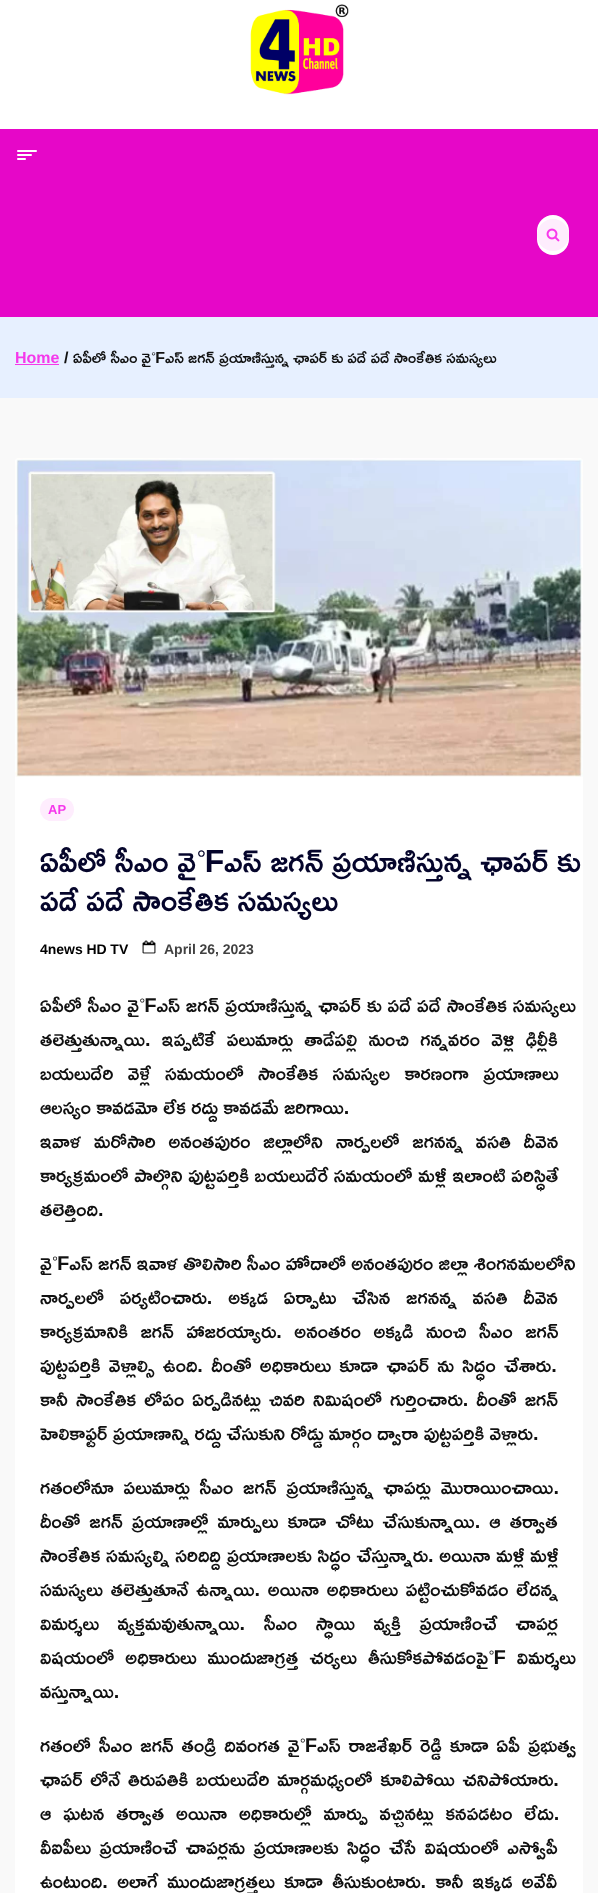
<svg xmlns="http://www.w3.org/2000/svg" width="598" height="1893">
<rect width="100%" height="100%" fill="#fff"/>
<image x="250" y="4" width="99" height="91" href="media/1.png"/>
<rect y="129" width="598" height="188" fill="#e607c8"/>
<image x="17" y="150" width="20" height="10" href="media/2.png"/>
<rect x="537" y="215" width="32" height="40" rx="16" fill="#fff"/>
<circle cx="553" cy="235" r="16" fill="#feedfd"/>
<image x="546" y="228" width="14" height="14" href="media/3.png"/>
<rect y="317" width="598" height="81" fill="#e7f0ff"/>
<text x="15" y="363" style="font-family:Ramabhadra;font-size:16px;fill:#f538eb">Home</text>
<rect x="15" y="364" width="44" height="1" fill="#f538eb"/>
<text x="64" y="363" style="font-family:Ramabhadra;font-size:16px;fill:#111">/</text>
<text x="73" y="363" style="font-family:Ramabhadra;font-size:16px;fill:#111">ఏపీలో సీఎం వైఎస్ జగన్ ప్రయాణిస్తున్న ఛాపర్ కు పదే పదే సాంకేతిక సమస్యలు</text>
<rect y="398" width="598" height="1495" fill="#f9f9f9"/>
<rect x="15" y="458" width="568" height="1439" rx="4" fill="#fff"/>
<image x="15" y="458" width="568" height="319" href="media/4.png"/>
<rect x="40" y="798" width="34" height="23" rx="11.5" fill="#feedfd"/>
<text x="48" y="814" style="font-family:Ramabhadra;font-size:13px;fill:#f538eb">AP</text>
<text x="40" y="872" style="font-family:Ramabhadra;font-size:32px;fill:#05052b">ఏపీలో సీఎం వైఎస్ జగన్ ప్రయాణిస్తున్న ఛాపర్ కు</text>
<text x="40" y="911" style="font-family:Ramabhadra;font-size:32px;fill:#05052b">పదే పదే సాంకేతిక సమస్యలు</text>
<text x="40" y="954" style="font-family:Ramabhadra;font-size:14px;fill:#000">4news HD TV</text>
<image x="142" y="940" width="14" height="14" href="media/5.png"/>
<text x="164" y="954" style="font-family:Ramabhadra;font-size:14px;fill:#414141">April 26, 2023</text>
<text x="40" y="1012" style="font-family:Ramabhadra;font-size:20px;fill:#111">ఏ</text>
<text x="52" y="1012" word-spacing="0.6" style="font-family:Ramabhadra;font-size:20px;fill:#111">పీలో సీఎం వైఎస్ జగన్ ప్రయాణిస్తున్న ఛాపర్ కు పదే పదే సాంకేతిక సమస్యలు</text>
<text x="40" y="1046" word-spacing="6" style="font-family:Ramabhadra;font-size:20px;fill:#111">తలెత్తుతున్నాయి. ఇప్పటికే పలుమార్లు తాడేపల్లి నుంచి గన్నవరం వెళ్లి ఢిల్లీకి</text>
<text x="40" y="1080" word-spacing="9" style="font-family:Ramabhadra;font-size:20px;fill:#111">బయలుదేరి వెళ్లే సమయంలో సాంకేతిక సమస్యల కారణంగా ప్రయాణాలు</text>
<text x="40" y="1114" style="font-family:Ramabhadra;font-size:20px;fill:#111">ఆలస్యం కావడమో లేక రద్దు కావడమే జరిగాయి.</text>
<text x="40" y="1148" word-spacing="7.5" style="font-family:Ramabhadra;font-size:20px;fill:#111">ఇవాళ మరోసారి అనంతపురం జిల్లాలోని నార్పలలో జగనన్న వసతి దీవెన</text>
<text x="40" y="1182" word-spacing="0.5" style="font-family:Ramabhadra;font-size:20px;fill:#111">కార్యక్రమంలో పాల్గొని పుట్టపర్తికి బయలుదేరే సమయంలో మళ్లీ ఇలాంటి పరిస్ధితే</text>
<text x="40" y="1216" style="font-family:Ramabhadra;font-size:20px;fill:#111">తలెత్తింది.</text>
<text x="40" y="1270" style="font-family:Ramabhadra;font-size:20px;fill:#111">వైఎస్ జగన్ ఇవాళ తొలిసారి సీఎం హోదాలో అనంతపురం జిల్లా శింగనమలలోని</text>
<text x="40" y="1304" word-spacing="10.5" style="font-family:Ramabhadra;font-size:20px;fill:#111">నార్పలలో పర్యటించారు. అక్కడ ఏర్పాటు చేసిన జగనన్న వసతి దీవెన</text>
<text x="40" y="1338" word-spacing="7.25" style="font-family:Ramabhadra;font-size:20px;fill:#111">కార్యక్రమానికి జగన్ హాజరయ్యారు. అనంతరం అక్కడి నుంచి సీఎం జగన్</text>
<text x="40" y="1372" word-spacing="3" style="font-family:Ramabhadra;font-size:20px;fill:#111">పుట్టపర్తికి వెళ్లాల్సి ఉంది. దీంతో అధికారులు కూడా ఛాపర్ ను సిద్ధం చేశారు.</text>
<text x="40" y="1406" word-spacing="2.75" style="font-family:Ramabhadra;font-size:20px;fill:#111">కానీ సాంకేతిక లోపం ఏర్పడినట్లు చివరి నిమిషంలో గుర్తించారు. దీంతో జగన్</text>
<text x="40" y="1440" style="font-family:Ramabhadra;font-size:20px;fill:#111">హెలికాఫ్టర్ ప్రయాణాన్ని రద్దు చేసుకుని రోడ్డు మార్గం ద్వారా పుట్టపర్తికి వెళ్లారు.</text>
<text x="40" y="1494" word-spacing="4.5" style="font-family:Ramabhadra;font-size:20px;fill:#111">గతంలోనూ పలుమార్లు సీఎం జగన్ ప్రయాణిస్తున్న ఛాపర్లు మొరాయించాయి.</text>
<text x="40" y="1528" word-spacing="3.75" style="font-family:Ramabhadra;font-size:20px;fill:#111">దీంతో జగన్ ప్రయాణాల్లో మార్పులు కూడా చోటు చేసుకున్నాయి. ఆ తర్వాత</text>
<text x="40" y="1562" word-spacing="0.5" style="font-family:Ramabhadra;font-size:20px;fill:#111">సాంకేతిక సమస్యల్ని సరిదిద్ది ప్రయాణాలకు సిద్ధం చేస్తున్నారు. అయినా మళ్లీ మళ్లీ</text>
<text x="40" y="1596" word-spacing="2.5" style="font-family:Ramabhadra;font-size:20px;fill:#111">సమస్యలు తలెత్తుతూనే ఉన్నాయి. అయినా అధికారులు పట్టించుకోవడం లేదన్న</text>
<text x="40" y="1630" word-spacing="13.25" style="font-family:Ramabhadra;font-size:20px;fill:#111">విమర్శలు వ్యక్తమవుతున్నాయి. సీఎం స్ధాయి వ్యక్తి ప్రయాణించే చాపర్ల</text>
<text x="40" y="1664" word-spacing="5.75" style="font-family:Ramabhadra;font-size:20px;fill:#111">విషయంలో అధికారులు ముందుజాగ్రత్త చర్యలు తీసుకోకపోవడంపై విమర్శలు</text>
<text x="40" y="1698" style="font-family:Ramabhadra;font-size:20px;fill:#111">వస్తున్నాయి.</text>
<text x="40" y="1752" word-spacing="2.6" style="font-family:Ramabhadra;font-size:20px;fill:#111">గతంలో సీఎం జగన్ తండ్రి దివంగత వైఎస్ రాజశేఖర్ రెడ్డి కూడా ఏపీ ప్రభుత్వ</text>
<text x="40" y="1786" word-spacing="2.5" style="font-family:Ramabhadra;font-size:20px;fill:#111">ఛాపర్ లోనే తిరుపతికి బయలుదేరి మార్గమధ్యంలో కూలిపోయి చనిపోయారు.</text>
<text x="40" y="1820" word-spacing="6.5" style="font-family:Ramabhadra;font-size:20px;fill:#111">ఆ ఘటన తర్వాత అయినా అధికారుల్లో మార్పు వచ్చినట్లు కనపడటం లేదు.</text>
<text x="40" y="1854" word-spacing="3.25" style="font-family:Ramabhadra;font-size:20px;fill:#111">వీఐపీలు ప్రయాణించే చాపర్లను ప్రయాణాలకు సిద్ధం చేసే విషయంలో ఎస్వోపీ</text>
<text x="40" y="1888" word-spacing="4" style="font-family:Ramabhadra;font-size:20px;fill:#111">ఉంటుంది. అలాగే ముందుజాగ్రత్తలు కూడా తీసుకుంటారు. కానీ ఇక్కడ అవేవీ</text>
</svg>
